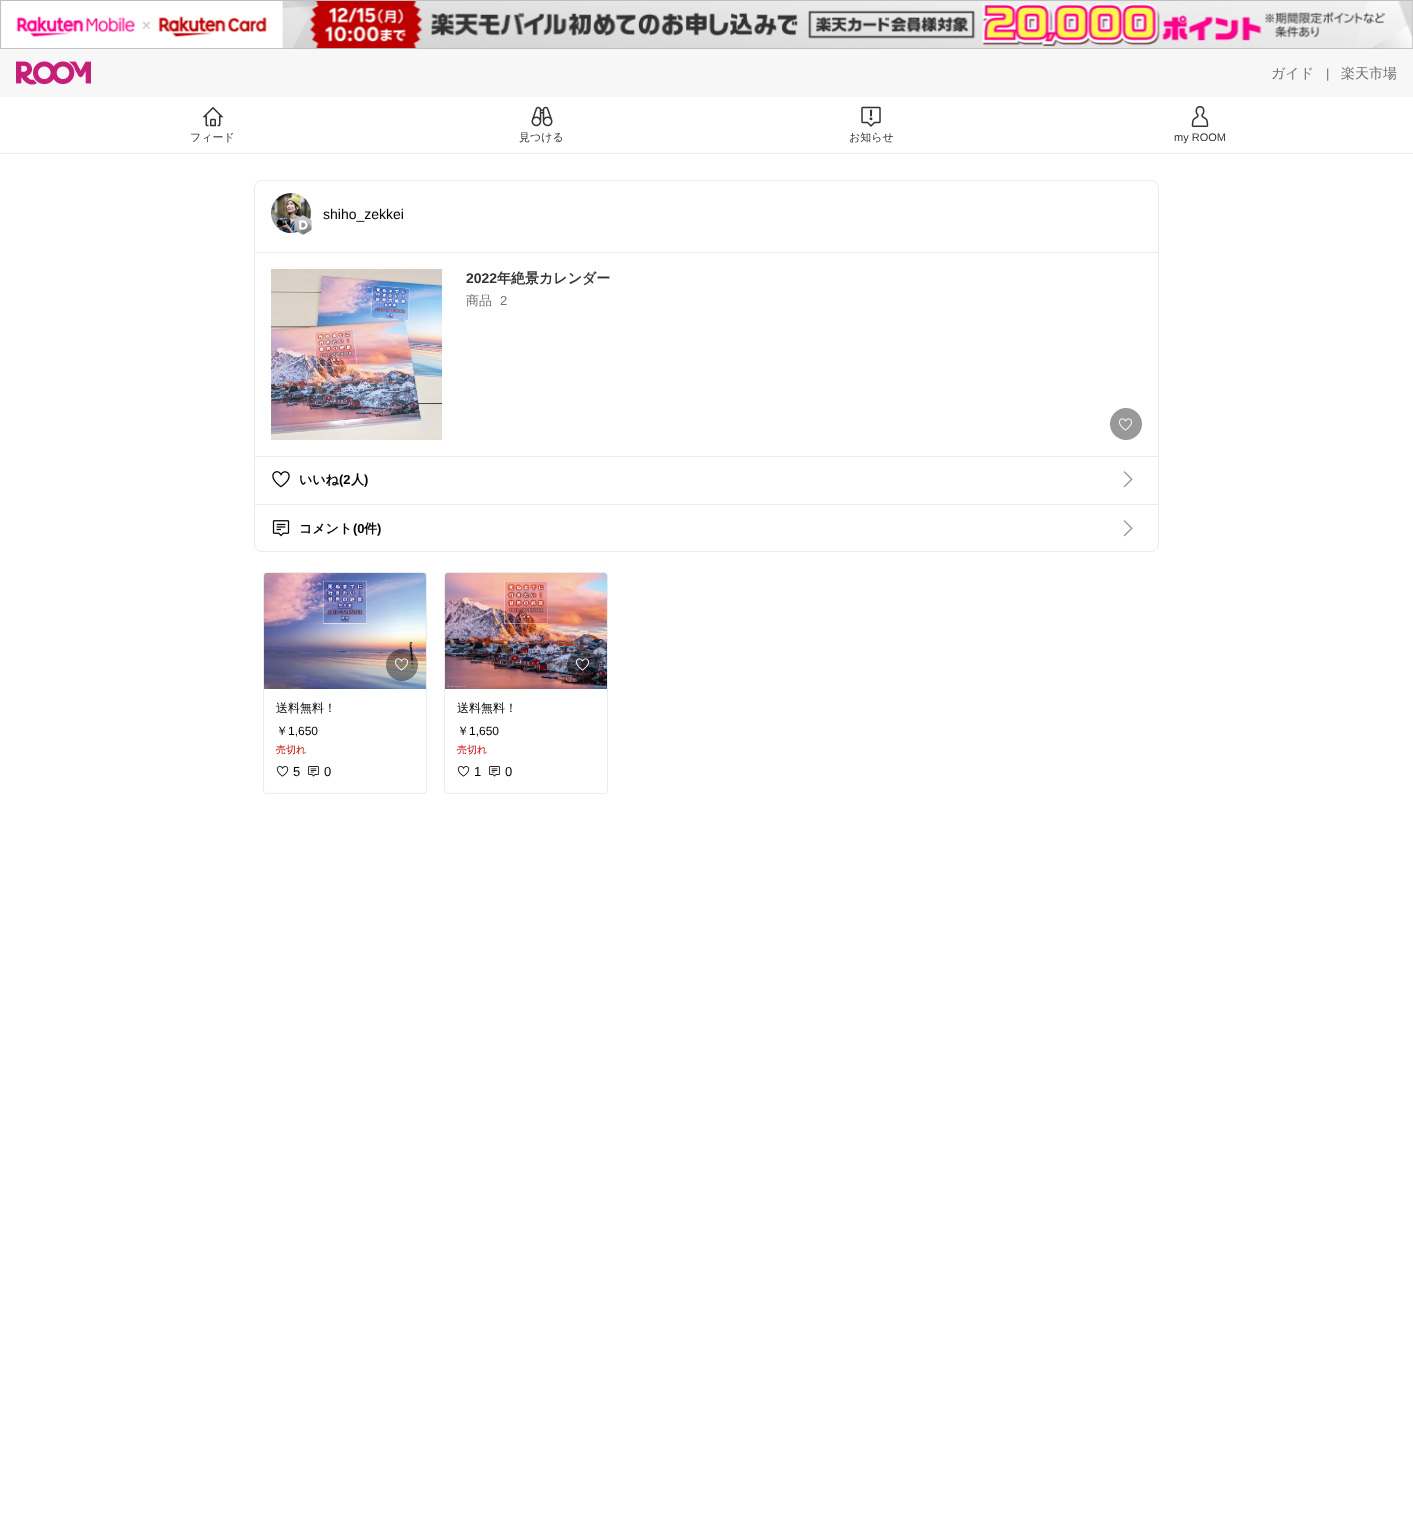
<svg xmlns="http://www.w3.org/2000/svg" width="1413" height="1535">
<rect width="100%" height="100%" fill="#fff"/>
<image x="0" y="0" width="1413" height="49" href="media/1.png"/>
<rect y="49" width="1413" height="48" fill="#f7f7f7"/>
<image x="16" y="61" width="75" height="24" href="media/2.png"/>
<text x="1271" y="78" style="font-family:WenQuanYi Zen Hei;font-size:14px;font-weight:500;fill:#717171">ガイド</text>
<text x="1326" y="78" style="font-family:Liberation Sans;font-size:13px;fill:#717171">|</text>
<text x="1341" y="78" style="font-family:WenQuanYi Zen Hei;font-size:14px;font-weight:500;fill:#717171">楽天市場</text>
<rect y="153" width="1413" height="1" fill="#ebebeb"/>
<image x="202" y="106" width="22" height="21" href="media/3.png"/>
<text x="190" y="141" style="font-family:WenQuanYi Zen Hei;font-size:11px;font-weight:500;fill:#333">フィード</text>
<image x="531" y="106" width="22" height="21" href="media/4.png"/>
<text x="519" y="141" style="font-family:WenQuanYi Zen Hei;font-size:11px;font-weight:500;fill:#333">見つける</text>
<image x="861" y="106" width="20" height="21" href="media/5.png"/>
<text x="849" y="141" style="font-family:WenQuanYi Zen Hei;font-size:11px;font-weight:500;fill:#333">お知らせ</text>
<image x="1191" y="106" width="18" height="21" href="media/6.png"/>
<text x="1174" y="141" style="font-family:Liberation Sans;font-size:11px;fill:#333">my ROOM</text>
<rect x="254.5" y="180.5" width="904" height="371" rx="7.5" fill="none" stroke="#ebebeb"/>
<rect x="255" y="252" width="903" height="1" fill="#ebebeb"/>
<image x="271" y="193" width="40" height="40" href="media/7.png"/>
<image x="294" y="215" width="18" height="20" href="media/8.png"/>
<text x="323" y="219" style="font-family:Liberation Sans;font-size:14px;fill:#000">shiho_zekkei</text>
<rect x="255" y="456" width="903" height="1" fill="#ebebeb"/>
<image x="271" y="269" width="171" height="171" href="media/9.png"/>
<text x="466" y="283" style="font-family:Liberation Sans;font-size:14px;font-weight:bold;fill:#333">2022</text>
<text x="497" y="283" style="font-family:WenQuanYi Zen Hei;font-size:14px;font-weight:bold;fill:#333">年絶景カレンダー</text>
<text x="466" y="305" style="font-family:WenQuanYi Zen Hei;font-size:13px;font-weight:500;fill:#717171">商品</text>
<text x="500" y="305" style="font-family:Liberation Sans;font-size:13px;fill:#717171">2</text>
<circle cx="1126" cy="424" r="16" fill="#999"/>
<image x="1119" y="418" width="13" height="13" href="media/10.png"/>
<rect x="255" y="504" width="903" height="1" fill="#ebebeb"/>
<image x="272" y="471" width="18" height="17" href="media/11.png"/>
<text x="299" y="484" style="font-family:WenQuanYi Zen Hei;font-size:13px;font-weight:bold;fill:#000">いいね</text>
<text x="339" y="484" style="font-family:Liberation Sans;font-size:13px;font-weight:bold;fill:#000">(2</text>
<text x="351" y="484" style="font-family:WenQuanYi Zen Hei;font-size:13px;font-weight:bold;fill:#000">人</text>
<text x="364" y="484" style="font-family:Liberation Sans;font-size:13px;font-weight:bold;fill:#000">)</text>
<image x="1123" y="471" width="10" height="17" href="media/12.png"/>
<image x="272" y="520" width="18" height="17" href="media/13.png"/>
<text x="299" y="533" style="font-family:WenQuanYi Zen Hei;font-size:13px;font-weight:bold;fill:#000">コメント</text>
<text x="353" y="533" style="font-family:Liberation Sans;font-size:13px;font-weight:bold;fill:#000">(0</text>
<text x="364" y="533" style="font-family:WenQuanYi Zen Hei;font-size:13px;font-weight:bold;fill:#000">件</text>
<text x="377" y="533" style="font-family:Liberation Sans;font-size:13px;font-weight:bold;fill:#000">)</text>
<image x="1123" y="520" width="10" height="17" href="media/12.png"/>
<rect x="263.5" y="572.5" width="163" height="221" rx="3.5" fill="none" stroke="#ebebeb"/>
<image x="264" y="573" width="162" height="116" href="media/14.png"/>
<circle cx="402" cy="665" r="16" fill="#00000066"/>
<image x="395" y="658" width="13" height="13" href="media/15.png"/>
<text x="276" y="712" style="font-family:WenQuanYi Zen Hei;font-size:12px;font-weight:500;fill:#000">送料無料！</text>
<text x="276" y="735" style="font-family:WenQuanYi Zen Hei;font-size:12px;font-weight:500;fill:#000">￥</text>
<text x="288" y="735" style="font-family:Liberation Sans;font-size:12px;fill:#000">1,650</text>
<text x="276" y="753" style="font-family:WenQuanYi Zen Hei;font-size:10px;font-weight:500;fill:#bf0000">売切れ</text>
<image x="276" y="766" width="13" height="11" href="media/16.png"/>
<text x="293" y="776" style="font-family:Liberation Sans;font-size:13px;fill:#000">5</text>
<image x="308" y="766" width="11" height="11" href="media/17.png"/>
<text x="324" y="776" style="font-family:Liberation Sans;font-size:13px;fill:#000">0</text>
<rect x="444.5" y="572.5" width="163" height="221" rx="3.5" fill="none" stroke="#ebebeb"/>
<image x="445" y="573" width="162" height="116" href="media/18.png"/>
<circle cx="583" cy="665" r="16" fill="#00000066"/>
<image x="576" y="658" width="13" height="13" href="media/19.png"/>
<text x="457" y="712" style="font-family:WenQuanYi Zen Hei;font-size:12px;font-weight:500;fill:#000">送料無料！</text>
<text x="457" y="735" style="font-family:WenQuanYi Zen Hei;font-size:12px;font-weight:500;fill:#000">￥</text>
<text x="469" y="735" style="font-family:Liberation Sans;font-size:12px;fill:#000">1,650</text>
<text x="457" y="753" style="font-family:WenQuanYi Zen Hei;font-size:10px;font-weight:500;fill:#bf0000">売切れ</text>
<image x="457" y="766" width="13" height="11" href="media/16.png"/>
<text x="474" y="776" style="font-family:Liberation Sans;font-size:13px;fill:#000">1</text>
<image x="489" y="766" width="11" height="11" href="media/17.png"/>
<text x="505" y="776" style="font-family:Liberation Sans;font-size:13px;fill:#000">0</text>
</svg>
